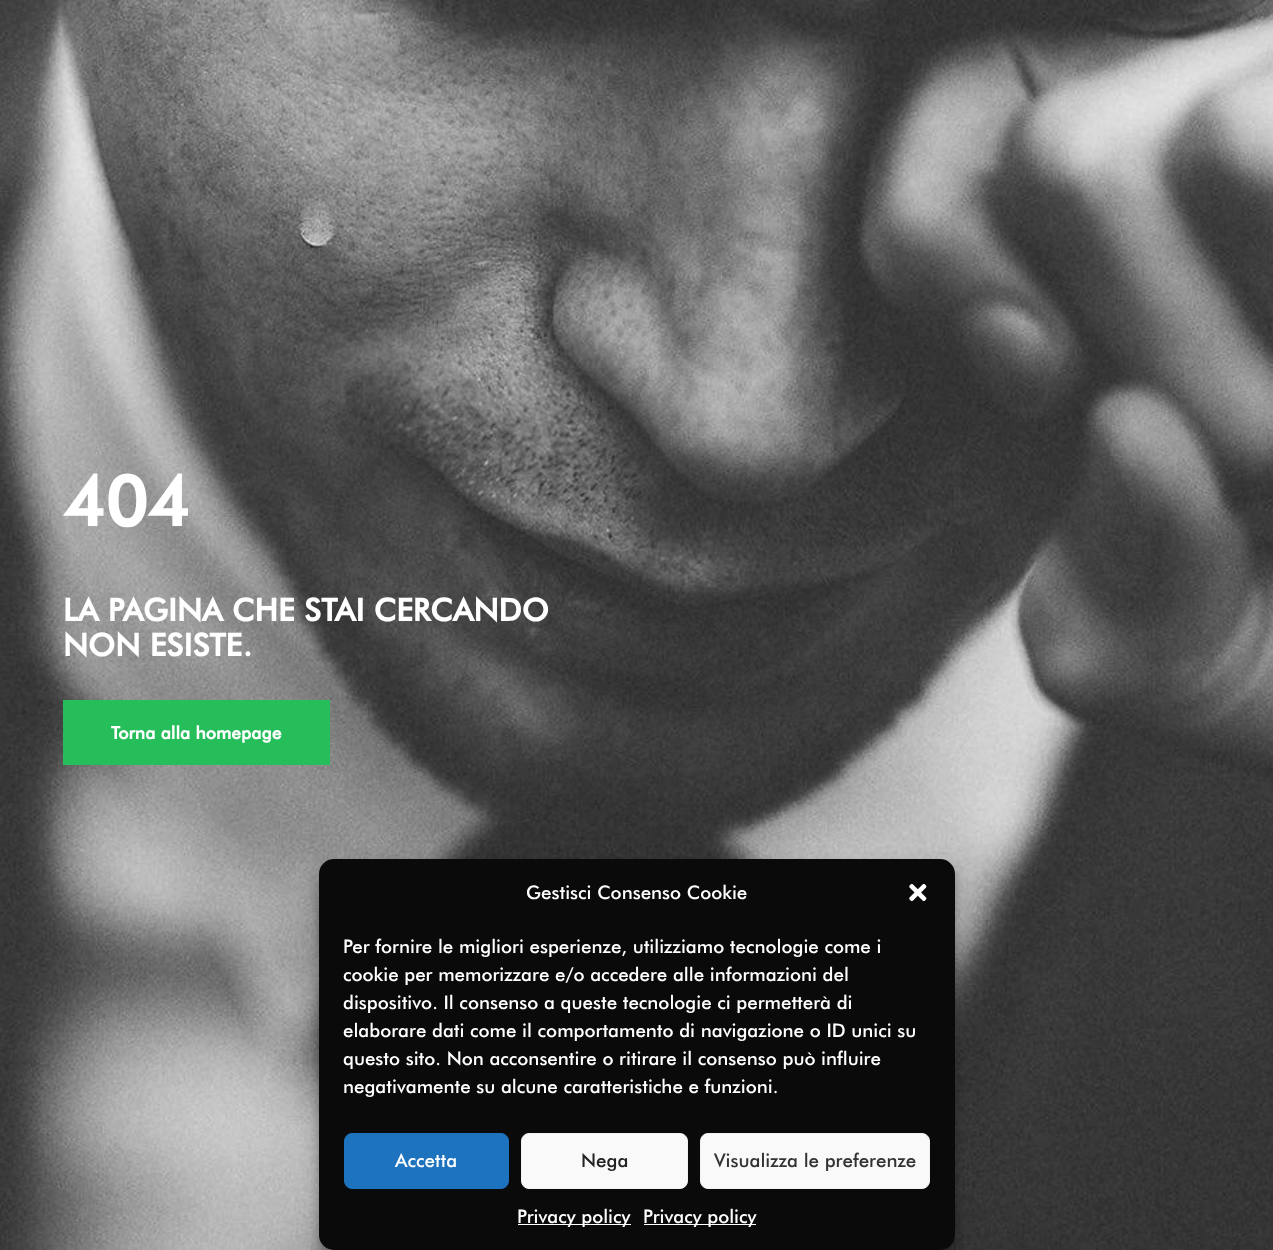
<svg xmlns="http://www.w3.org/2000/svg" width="1273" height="1250">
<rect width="100%" height="100%" fill="#fff"/>
<image x="0" y="0" width="1273" height="1250" href="media/1.png"/>
<text x="63" y="526" style="font-family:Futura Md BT;font-size:70px;font-weight:bold;fill:#fff">404</text>
<text x="63" y="621" style="font-family:Futura Md BT;font-size:31.25px;font-weight:bold;fill:#fff">LA PAGINA CHE STAI CERCANDO</text>
<text x="63" y="656" style="font-family:Futura Md BT;font-size:31.25px;font-weight:bold;fill:#fff">NON ESISTE.</text>
<rect x="63" y="700" width="267" height="65" fill="#25be5a"/>
<text x="111" y="739" style="font-family:Futura Md BT;font-size:17.5px;font-weight:bold;fill:#fff">Torna alla homepage</text>
<rect x="319" y="866" width="636" height="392" rx="15" fill="#0000003b" filter="blur(4px)"/>
<rect x="319" y="871" width="636" height="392" rx="15" fill="#00000030" filter="blur(12.5px)"/>
<rect x="319" y="859" width="636" height="391" rx="15" fill="#0a0a0a"/>
<text x="526" y="899" style="font-family:Futura Md BT;font-size:18.75px;font-weight:500;fill:#fff">Gestisci Consenso Cookie</text>
<image x="909" y="883" width="18" height="19" href="media/2.png"/>
<text x="343" y="953" style="font-family:Futura Md BT;font-size:18.75px;font-weight:500;fill:#fff">Per fornire le migliori esperienze, utilizziamo tecnologie come i</text>
<text x="343" y="981" style="font-family:Futura Md BT;font-size:18.75px;font-weight:500;fill:#fff">cookie per memorizzare e/o accedere alle informazioni del</text>
<text x="343" y="1009" style="font-family:Futura Md BT;font-size:18.75px;font-weight:500;fill:#fff">dispositivo. Il consenso a queste tecnologie ci permetterà di</text>
<text x="343" y="1037" style="font-family:Futura Md BT;font-size:18.75px;font-weight:500;fill:#fff">elaborare dati come il comportamento di navigazione o ID unici su</text>
<text x="343" y="1065" style="font-family:Futura Md BT;font-size:18.75px;font-weight:500;fill:#fff">questo sito. Non acconsentire o ritirare il consenso può influire</text>
<text x="343" y="1093" style="font-family:Futura Md BT;font-size:18.75px;font-weight:500;fill:#fff">negativamente su alcune caratteristiche e funzioni.</text>
<rect x="344.5" y="1133.5" width="164" height="55" rx="7.5" fill="#1e73be" stroke="#1e73be"/>
<text x="395" y="1167" style="font-family:Futura Md BT;font-size:18.75px;font-weight:500;fill:#fff">Accetta</text>
<rect x="521.5" y="1133.5" width="166" height="55" rx="7.5" fill="#f9f9f9" stroke="#f2f2f2"/>
<text x="581" y="1167" style="font-family:Futura Md BT;font-size:18.75px;font-weight:500;fill:#222">Nega</text>
<rect x="700.5" y="1133.5" width="229" height="55" rx="7.5" fill="#f9f9f9" stroke="#f2f2f2"/>
<text x="714" y="1167" style="font-family:Futura Md BT;font-size:18.75px;font-weight:500;fill:#333">Visualizza le preferenze</text>
<rect x="518" y="1224" width="113" height="1" fill="#fff"/>
<text x="517" y="1223" style="font-family:Futura Md BT;font-size:18.75px;font-weight:500;fill:#fff">Privacy policy</text>
<rect x="644" y="1224" width="112" height="1" fill="#fff"/>
<text x="643" y="1223" style="font-family:Futura Md BT;font-size:18.75px;font-weight:500;fill:#fff">Privacy policy</text>
</svg>
